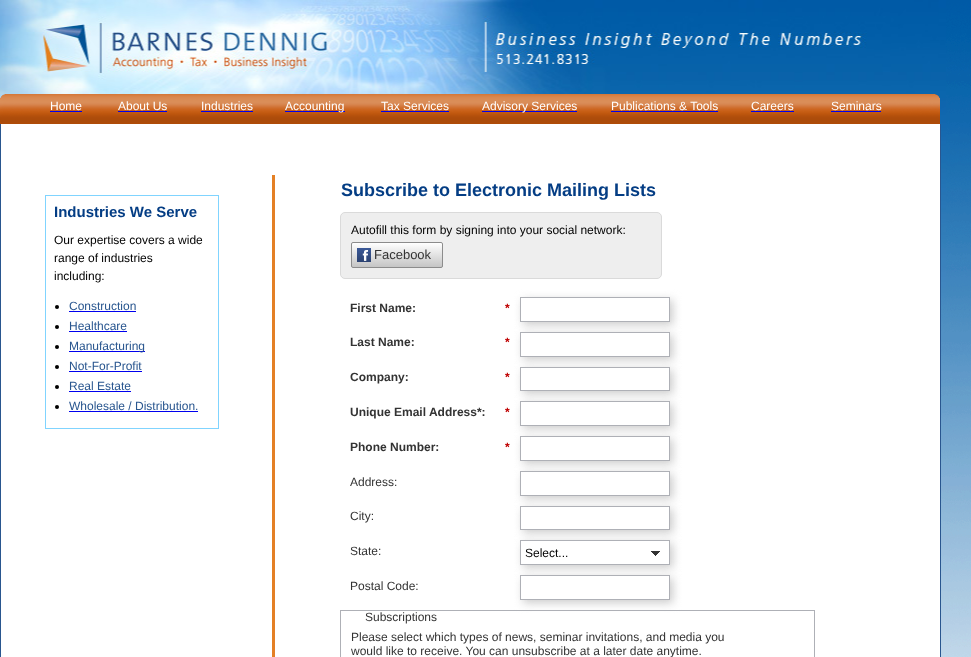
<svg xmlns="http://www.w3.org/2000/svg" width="971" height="657">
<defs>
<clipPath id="clip1"><rect x="351" y="242" width="92" height="26" rx="2"/></clipPath>
<linearGradient id="g1" gradientUnits="userSpaceOnUse" x1="352" y1="243" x2="352" y2="267"><stop offset="0" stop-color="#fff"/><stop offset="1" stop-color="#c5c5c5"/></linearGradient>
<clipPath id="clip2"><path d="M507 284h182v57h-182zm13 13h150v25h-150z" clip-rule="evenodd"/></clipPath>
</defs>
<rect width="100%" height="100%" fill="#fff"/>
<image x="941" y="0" width="30" height="657" href="media/1.png"/>
<image x="0" y="0" width="946" height="298" href="media/2.png"/>
<image x="0" y="94" width="940" height="30" href="media/3.png"/>
<text x="50" y="110" style="font-family:Liberation Sans;font-size:12px;fill:#fff">Home</text>
<rect x="50" y="111" width="32" height="1" fill="#00e"/>
<text x="118" y="110" style="font-family:Liberation Sans;font-size:12px;fill:#fff">About Us</text>
<rect x="118" y="111" width="49" height="1" fill="#00e"/>
<text x="201" y="110" style="font-family:Liberation Sans;font-size:12px;fill:#fff">Industries</text>
<rect x="201" y="111" width="52" height="1" fill="#00e"/>
<rect x="285" y="111" width="60" height="1" fill="#00e"/>
<text x="285" y="110" style="font-family:Liberation Sans;font-size:12px;fill:#fff">Accounting</text>
<text x="381" y="110" style="font-family:Liberation Sans;font-size:12px;fill:#fff">Tax Services</text>
<rect x="381" y="111" width="68" height="1" fill="#00e"/>
<rect x="482" y="111" width="95" height="1" fill="#00e"/>
<text x="482" y="110" style="font-family:Liberation Sans;font-size:12px;fill:#fff">Advisory Services</text>
<text x="611" y="110" style="font-family:Liberation Sans;font-size:12px;fill:#fff">Publications &amp; Tools</text>
<rect x="611" y="111" width="107" height="1" fill="#00e"/>
<text x="751" y="110" style="font-family:Liberation Sans;font-size:12px;fill:#fff">Careers</text>
<rect x="751" y="111" width="43" height="1" fill="#00e"/>
<text x="831" y="110" style="font-family:Liberation Sans;font-size:12px;fill:#fff">Seminars</text>
<rect x="831" y="111" width="50" height="1" fill="#00e"/>
<rect x="1" y="124" width="939" height="174" fill="#fff"/>
<rect x="940" y="124" width="1" height="533" fill="#29568f"/>
<rect y="124" width="1" height="533" fill="#29568f"/>
<rect x="271.5" y="174.5" width="4" height="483" fill="#e48025" stroke="#fff"/>
<text x="341" y="196" style="font-family:Liberation Sans;font-size:18px;font-weight:bold;fill:#043d84">Subscribe to Electronic Mailing Lists</text>
<rect x="45.5" y="195.5" width="173" height="233" fill="none" stroke="#80d4ff"/>
<text x="54" y="217" style="font-family:Liberation Sans;font-size:15px;font-weight:bold;fill:#043d84">Industries We Serve</text>
<text x="54" y="244" style="font-family:Liberation Sans;font-size:12px;fill:#000">Our expertise covers a wide</text>
<text x="54" y="262" style="font-family:Liberation Sans;font-size:12px;fill:#000">range of industries</text>
<text x="54" y="280" style="font-family:Liberation Sans;font-size:12px;fill:#000">including:</text>
<circle cx="57" cy="307" r="2" fill="#000"/>
<text x="69" y="310" style="font-family:Liberation Sans;font-size:12px;fill:#29568f">Construction</text>
<rect x="69" y="311" width="67" height="1" fill="#00e"/>
<circle cx="57" cy="327" r="2" fill="#000"/>
<text x="69" y="330" style="font-family:Liberation Sans;font-size:12px;fill:#29568f">Healthcare</text>
<rect x="69" y="331" width="58" height="1" fill="#00e"/>
<circle cx="57" cy="347" r="2" fill="#000"/>
<rect x="69" y="351" width="76" height="1" fill="#00e"/>
<text x="69" y="350" style="font-family:Liberation Sans;font-size:12px;fill:#29568f">Manufacturing</text>
<circle cx="57" cy="367" r="2" fill="#000"/>
<text x="69" y="370" style="font-family:Liberation Sans;font-size:12px;fill:#29568f">Not-For-Profit</text>
<rect x="69" y="371" width="73" height="1" fill="#00e"/>
<circle cx="57" cy="387" r="2" fill="#000"/>
<text x="69" y="390" style="font-family:Liberation Sans;font-size:12px;fill:#29568f">Real Estate</text>
<rect x="69" y="391" width="62" height="1" fill="#00e"/>
<circle cx="57" cy="407" r="2" fill="#000"/>
<text x="69" y="410" style="font-family:Liberation Sans;font-size:12px;fill:#29568f">Wholesale / Distribution.</text>
<rect x="69" y="411" width="129" height="1" fill="#00e"/>
<rect x="340.5" y="212.5" width="321" height="66" rx="4.5" fill="#eee" stroke="#dadada"/>
<text x="351" y="234" style="font-family:Liberation Sans;font-size:12px;fill:#000">Autofill this form by signing into your social network:</text>
<g clip-path="url(#clip1)">
<rect x="351" y="243" width="92" height="24" fill="url(#g1)"/>
</g>
<rect x="351.5" y="242.5" width="91" height="25" rx="1.5" fill="none" stroke="#8c8c8c"/>
<image x="357" y="248" width="14" height="14" href="media/4.png"/>
<text x="374" y="259" style="font-family:Liberation Sans;font-size:13px;fill:#333">Facebook</text>
<text x="350" y="312" style="font-family:Liberation Sans;font-size:12px;font-weight:bold;fill:#333">First Name:</text>
<text x="505" y="312" style="font-family:Liberation Sans;font-size:12px;font-weight:bold;fill:#bf0000">*</text>
<g clip-path="url(#clip2)">
<rect x="523" y="300" width="150" height="25" fill="#ccc" filter="blur(5px)"/>
</g>
<rect x="520.5" y="297.5" width="149" height="24" fill="none" stroke="#aeb0b6"/>
<text x="350" y="346" style="font-family:Liberation Sans;font-size:12px;font-weight:bold;fill:#333">Last Name:</text>
<text x="505" y="346" style="font-family:Liberation Sans;font-size:12px;font-weight:bold;fill:#bf0000">*</text>
<rect x="523" y="335" width="150" height="25" fill="#ccc" filter="blur(5px)"/>
<rect x="520.5" y="332.5" width="149" height="24" fill="#fff" stroke="#aeb0b6"/>
<text x="350" y="381" style="font-family:Liberation Sans;font-size:12px;font-weight:bold;fill:#333">Company:</text>
<text x="505" y="381" style="font-family:Liberation Sans;font-size:12px;font-weight:bold;fill:#bf0000">*</text>
<rect x="523" y="370" width="150" height="24" fill="#ccc" filter="blur(5px)"/>
<rect x="520.5" y="367.5" width="149" height="23" fill="#fff" stroke="#aeb0b6"/>
<text x="350" y="416" style="font-family:Liberation Sans;font-size:12px;font-weight:bold;fill:#333">Unique Email Address*:</text>
<text x="505" y="416" style="font-family:Liberation Sans;font-size:12px;font-weight:bold;fill:#bf0000">*</text>
<rect x="523" y="404" width="150" height="25" fill="#ccc" filter="blur(5px)"/>
<rect x="520.5" y="401.5" width="149" height="24" fill="#fff" stroke="#aeb0b6"/>
<text x="350" y="451" style="font-family:Liberation Sans;font-size:12px;font-weight:bold;fill:#333">Phone Number:</text>
<text x="505" y="451" style="font-family:Liberation Sans;font-size:12px;font-weight:bold;fill:#bf0000">*</text>
<rect x="523" y="439" width="150" height="25" fill="#ccc" filter="blur(5px)"/>
<rect x="520.5" y="436.5" width="149" height="24" fill="#fff" stroke="#aeb0b6"/>
<text x="350" y="486" style="font-family:Liberation Sans;font-size:12px;fill:#333">Address:</text>
<rect x="523" y="474" width="150" height="25" fill="#ccc" filter="blur(5px)"/>
<rect x="520.5" y="471.5" width="149" height="24" fill="#fff" stroke="#aeb0b6"/>
<text x="350" y="520" style="font-family:Liberation Sans;font-size:12px;fill:#333">City:</text>
<rect x="523" y="509" width="150" height="24" fill="#ccc" filter="blur(5px)"/>
<rect x="520.5" y="506.5" width="149" height="23" fill="#fff" stroke="#aeb0b6"/>
<text x="350" y="555" style="font-family:Liberation Sans;font-size:12px;fill:#333">State:</text>
<rect x="523" y="543" width="150" height="25" fill="#ccc" filter="blur(5px)"/>
<rect x="521" y="541" width="148" height="23" fill="#fff"/>
<image x="651" y="551" width="9" height="5" href="media/5.png"/>
<rect x="520.5" y="540.5" width="149" height="24" fill="none" stroke="#aeb0b6"/>
<text x="525" y="557" style="font-family:Liberation Sans;font-size:12px;fill:#000">Select...</text>
<text x="350" y="590" style="font-family:Liberation Sans;font-size:12px;fill:#333">Postal Code:</text>
<rect x="523" y="578" width="150" height="25" fill="#ccc" filter="blur(5px)"/>
<rect x="520.5" y="575.5" width="149" height="24" fill="#fff" stroke="#aeb0b6"/>
<rect x="340.5" y="610.5" width="474" height="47" fill="none" stroke="#aeb0b6"/>
<text x="365" y="621" style="font-family:Liberation Sans;font-size:12px;fill:#333">Subscriptions</text>
<text x="351" y="641" style="font-family:Liberation Sans;font-size:12px;fill:#333">Please select which types of news, seminar invitations, and media you</text>
<text x="351" y="655" style="font-family:Liberation Sans;font-size:12px;fill:#333">would like to receive. You can unsubscribe at a later date anytime.</text>
</svg>
